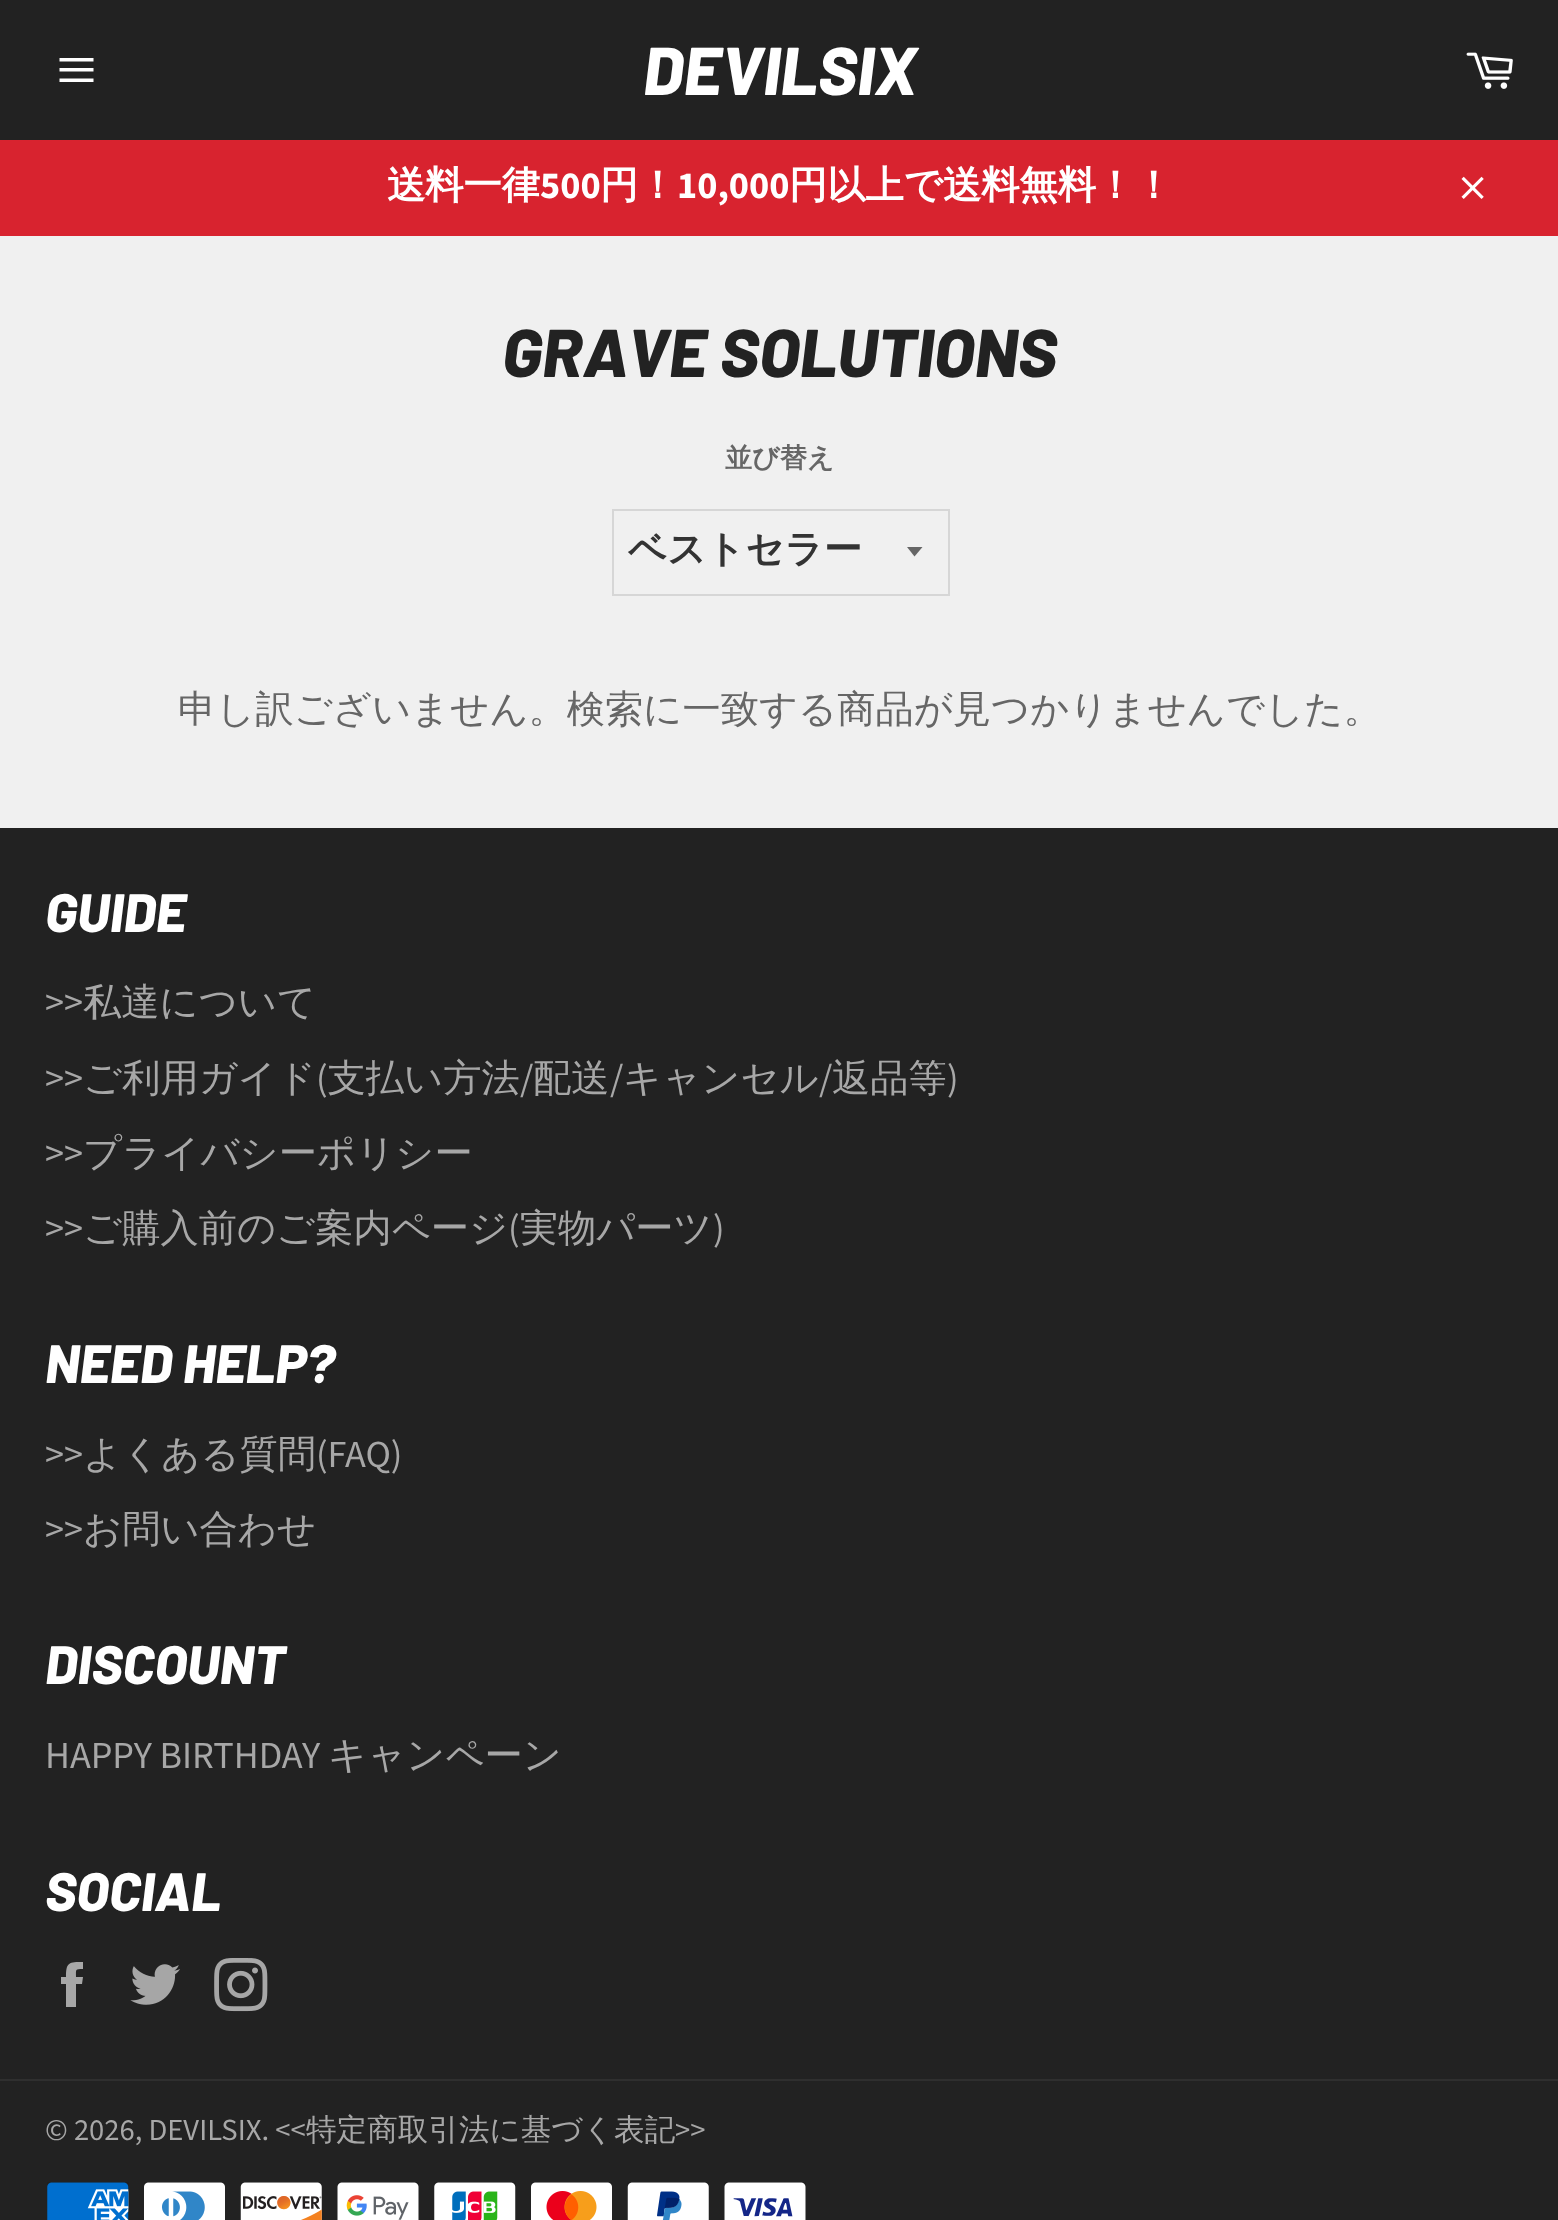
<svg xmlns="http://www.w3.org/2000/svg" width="1558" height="2220">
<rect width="100%" height="100%" fill="#f0f0f0"/>
<rect width="1558" height="140" fill="#222"/>
<path d="M59.5 68h34v3.5h-34zm0-10h34v3.5h-34zm0 20.5h34v3.5h-34z" fill="#fff"/>
<text x="643" y="95" style="font-family:Barlow;font-size:67.5px;font-weight:800;font-style:italic;fill:#fff">DEVILSIX</text>
<image x="1466" y="52" width="47" height="37" href="media/1.png"/>
<rect y="140" width="1558" height="96" fill="#d8232f"/>
<text x="387" y="198" style="font-family:WenQuanYi Zen Hei;font-size:38.25px;font-weight:bold;fill:#fff">送料一律</text>
<text x="540" y="198" style="font-family:Source Sans Pro;font-size:38.25px;font-weight:bold;fill:#fff">500</text>
<text x="600" y="198" style="font-family:WenQuanYi Zen Hei;font-size:38.25px;font-weight:bold;fill:#fff">円！</text>
<text x="677" y="198" style="font-family:Source Sans Pro;font-size:38.25px;font-weight:bold;fill:#fff">10,000</text>
<text x="789" y="198" style="font-family:WenQuanYi Zen Hei;font-size:38.25px;font-weight:bold;fill:#fff">円以上で送料無料！！</text>
<image x="1461" y="176" width="23" height="23" href="media/2.png"/>
<text x="502" y="377" style="font-family:Barlow;font-size:67.5px;font-weight:800;font-style:italic;fill:#222">GRAVE SOLUTIONS</text>
<text x="725" y="467" style="font-family:WenQuanYi Zen Hei;font-size:27px;font-weight:bold;fill:#666">並び替え</text>
<path d="M907 547l7.5 9.5l8-9.5z" fill="#666"/>
<rect x="613" y="510" width="336" height="85" fill="none" stroke="#d6d6d6" stroke-width="2"/>
<text x="628" y="562" style="font-family:WenQuanYi Zen Hei;font-size:38.25px;font-weight:bold;fill:#333">ベストセラー</text>
<text x="178" y="722" style="font-family:WenQuanYi Zen Hei;font-size:38.25px;font-weight:500;fill:#666">申し訳ございません。検索に一致する商品が見つかりませんでした。</text>
<rect y="828" width="1558" height="1392" fill="#222"/>
<text x="45" y="932" style="font-family:Barlow;font-size:54px;font-weight:800;font-style:italic;fill:#fff">GUIDE</text>
<text x="45" y="1015" style="font-family:Source Sans Pro;font-size:38.25px;fill:#a7a7a7">&gt;&gt;</text>
<text x="83" y="1015" style="font-family:WenQuanYi Zen Hei;font-size:38.25px;font-weight:500;fill:#a7a7a7">私達について</text>
<text x="83" y="1091" style="font-family:WenQuanYi Zen Hei;font-size:38.25px;font-weight:500;fill:#a7a7a7">ご利用ガイド 支払い方法</text>
<text x="533" y="1091" style="font-family:WenQuanYi Zen Hei;font-size:38.25px;font-weight:500;fill:#a7a7a7">配送</text>
<text x="832" y="1091" style="font-family:WenQuanYi Zen Hei;font-size:38.25px;font-weight:500;fill:#a7a7a7">返品等</text>
<text x="45" y="1091" style="font-family:Source Sans Pro;font-size:38.25px;fill:#a7a7a7">&gt;&gt;</text>
<text x="316" y="1091" style="font-family:Source Sans Pro;font-size:38.25px;fill:#a7a7a7">(</text>
<text x="520" y="1091" style="font-family:Source Sans Pro;font-size:38.25px;fill:#a7a7a7">/</text>
<text x="610" y="1091" style="font-family:Source Sans Pro;font-size:38.25px;fill:#a7a7a7">/</text>
<text x="623" y="1091" style="font-family:WenQuanYi Zen Hei;font-size:38.25px;font-weight:500;fill:#a7a7a7">キャンセル</text>
<text x="819" y="1091" style="font-family:Source Sans Pro;font-size:38.25px;fill:#a7a7a7">/</text>
<text x="947" y="1091" style="font-family:Source Sans Pro;font-size:38.25px;fill:#a7a7a7">)</text>
<text x="45" y="1166" style="font-family:Source Sans Pro;font-size:38.25px;fill:#a7a7a7">&gt;&gt;</text>
<text x="83" y="1166" style="font-family:WenQuanYi Zen Hei;font-size:38.25px;font-weight:500;fill:#a7a7a7">プライバシーポリシー</text>
<text x="83" y="1241" style="font-family:WenQuanYi Zen Hei;font-size:38.25px;font-weight:500;fill:#a7a7a7">ご購入前のご案内ページ 実物パーツ</text>
<text x="45" y="1241" style="font-family:Source Sans Pro;font-size:38.25px;fill:#a7a7a7">&gt;&gt;</text>
<text x="508" y="1241" style="font-family:Source Sans Pro;font-size:38.25px;fill:#a7a7a7">(</text>
<text x="713" y="1241" style="font-family:Source Sans Pro;font-size:38.25px;fill:#a7a7a7">)</text>
<text x="45" y="1383" style="font-family:Barlow;font-size:54px;font-weight:800;font-style:italic;fill:#fff">NEED HELP?</text>
<text x="45" y="1467" style="font-family:Source Sans Pro;font-size:38.25px;fill:#a7a7a7">&gt;&gt;</text>
<text x="83" y="1467" style="font-family:WenQuanYi Zen Hei;font-size:38.25px;font-weight:500;fill:#a7a7a7">よくある質問</text>
<text x="316" y="1467" style="font-family:Source Sans Pro;font-size:38.25px;fill:#a7a7a7">(FAQ)</text>
<text x="45" y="1542" style="font-family:Source Sans Pro;font-size:38.25px;fill:#a7a7a7">&gt;&gt;</text>
<text x="83" y="1542" style="font-family:WenQuanYi Zen Hei;font-size:38.25px;font-weight:500;fill:#a7a7a7">お問い合わせ</text>
<text x="45" y="1684" style="font-family:Barlow;font-size:54px;font-weight:800;font-style:italic;fill:#fff">DISCOUNT</text>
<text x="45" y="1768" style="font-family:Source Sans Pro;font-size:38.25px;fill:#a7a7a7">HAPPY BIRTHDAY</text>
<text x="328" y="1768" style="font-family:WenQuanYi Zen Hei;font-size:38.25px;font-weight:500;fill:#a7a7a7">キャンペーン</text>
<text x="45" y="1911" style="font-family:Barlow;font-size:54px;font-weight:800;font-style:italic;fill:#fff">SOCIAL</text>
<path d="M76 1977c0-8-1-8 7-8v-7c-14 0-17 0-17 15h-5v7h5v23h10v-23h6l1-7z" fill="#a7a7a7"/>
<image x="130" y="1964" width="50" height="41" href="media/3.png"/>
<image x="214" y="1958" width="54" height="54" href="media/4.png"/>
<rect y="2079" width="1558" height="2" fill="#2f2f2f"/>
<text x="45" y="2140" style="font-family:Source Sans Pro;font-size:30.6px;fill:#a7a7a7">© 2026, DEVILSIX. &lt;&lt;</text>
<text x="306" y="2140" style="font-family:WenQuanYi Zen Hei;font-size:30.6px;font-weight:500;fill:#a7a7a7">特定商取引法に基づく表記</text>
<text x="675" y="2140" style="font-family:Source Sans Pro;font-size:30.6px;fill:#a7a7a7">&gt;&gt;</text>
<image x="47" y="2182" width="82" height="38" href="media/5.png"/>
<image x="144" y="2182" width="81" height="38" href="media/6.png"/>
<image x="240" y="2182" width="82" height="38" href="media/7.png"/>
<image x="337" y="2182" width="82" height="38" href="media/8.png"/>
<image x="434" y="2182" width="82" height="38" href="media/9.png"/>
<image x="531" y="2182" width="81" height="38" href="media/10.png"/>
<image x="627" y="2182" width="82" height="38" href="media/11.png"/>
<image x="724" y="2182" width="82" height="38" href="media/12.png"/>
</svg>
